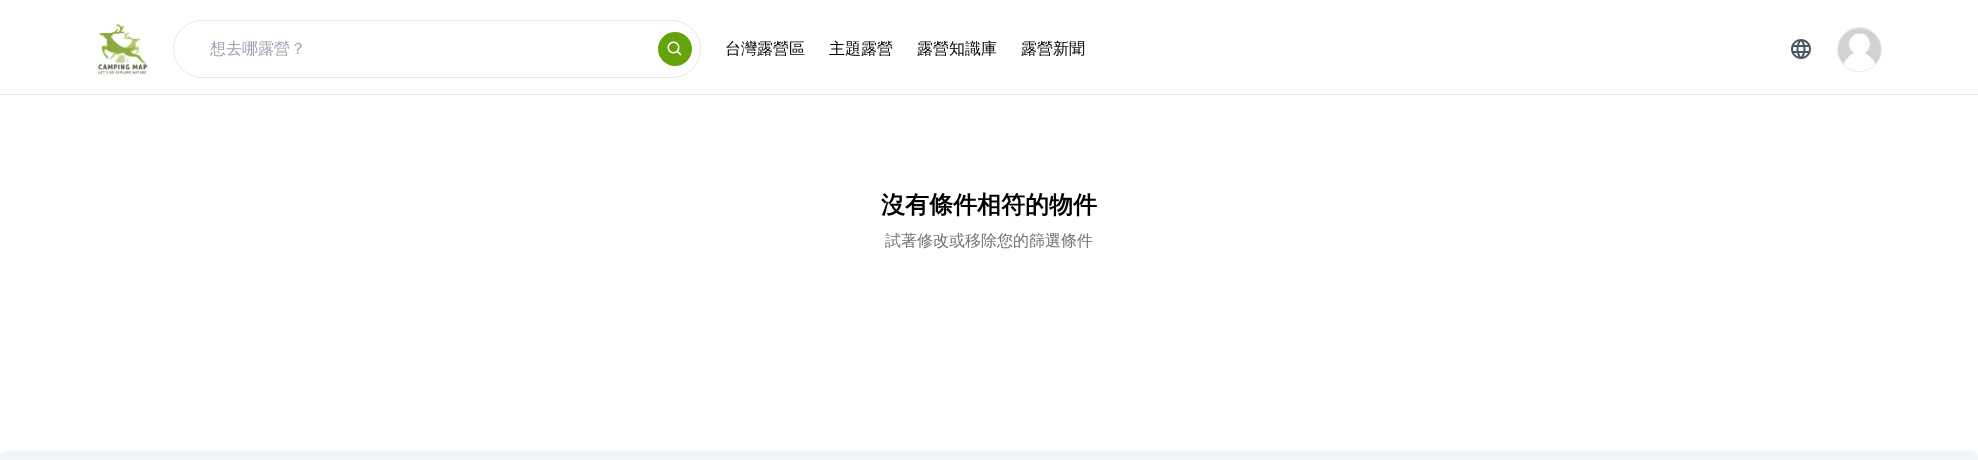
<svg xmlns="http://www.w3.org/2000/svg" width="1978" height="460">
<rect width="100%" height="100%" fill="#fff"/>
<rect y="94" width="1978" height="1" fill="#e5e7eb"/>
<image x="96" y="22" width="53" height="54" href="media/1.png"/>
<rect x="173.5" y="20.5" width="527" height="57" rx="28.5" fill="none" stroke="#e5e7eb"/>
<text x="210" y="54" style="font-family:WenQuanYi Zen Hei;font-size:16px;font-weight:500;fill:#9ca3af">想去哪露營？</text>
<circle cx="675" cy="49" r="17" fill="#65a30d"/>
<image x="667" y="41" width="15" height="15" href="media/2.png"/>
<text x="725" y="54" style="font-family:WenQuanYi Zen Hei;font-size:16px;font-weight:500;fill:#000">台灣露營區</text>
<text x="829" y="54" style="font-family:WenQuanYi Zen Hei;font-size:16px;font-weight:500;fill:#000">主題露營</text>
<text x="917" y="54" style="font-family:WenQuanYi Zen Hei;font-size:16px;font-weight:500;fill:#000">露營知識庫</text>
<text x="1021" y="54" style="font-family:WenQuanYi Zen Hei;font-size:16px;font-weight:500;fill:#000">露營新聞</text>
<image x="1791" y="39" width="20" height="20" href="media/3.png"/>
<circle cx="1859.5" cy="49.5" r="22" fill="none" stroke="#e5e7eb"/>
<image x="1838" y="28" width="43" height="43" href="media/4.png"/>
<text x="881" y="213" style="font-family:WenQuanYi Zen Hei;font-size:24px;font-weight:bold;fill:#000">沒有條件相符的物件</text>
<text x="885" y="246" style="font-family:WenQuanYi Zen Hei;font-size:16px;font-weight:500;fill:#737373">試著修改或移除您的篩選條件</text>
<rect y="452" width="1978" height="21" rx="8" fill="#0000001a" filter="blur(1.5px)"/>
<rect y="451" width="1978" height="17" rx="8" fill="#f1f5f9"/>
</svg>
